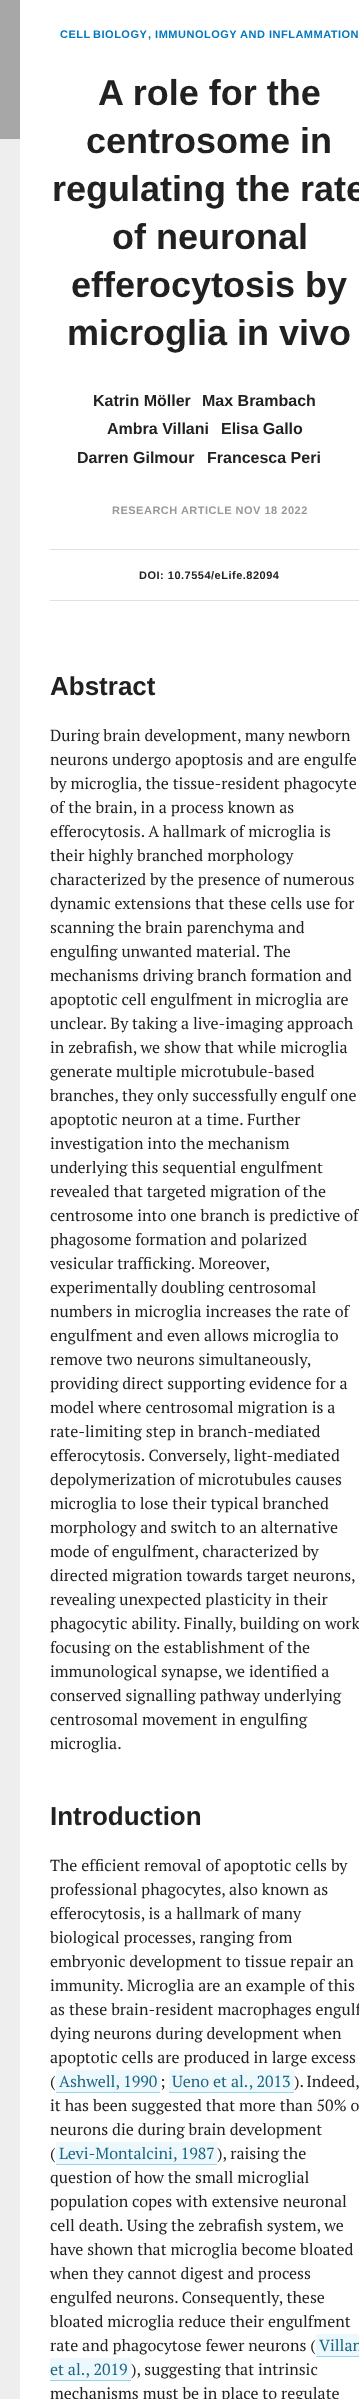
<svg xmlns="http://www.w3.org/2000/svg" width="359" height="2399">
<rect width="100%" height="100%" fill="#fff"/>
<rect y="139" width="20" height="2260" fill="#eee"/>
<rect width="20" height="139" fill="#a7a7a7"/>
<text x="60" y="38" word-spacing="-1" style="font-family:Liberation Sans;font-size:11px;font-weight:bold;letter-spacing:0.5px;fill:#0277bd">CELL BIOLOGY</text>
<text x="148" y="38" style="font-family:Liberation Sans;font-size:11px;font-weight:bold;letter-spacing:0.5px;fill:#0277bd">, IMMUNOLOGY AND INFLAMMATION</text>
<text x="98" y="105" style="font-family:Liberation Sans;font-size:36px;font-weight:bold;fill:#212121">A role for the</text>
<text x="86" y="153" style="font-family:Liberation Sans;font-size:36px;font-weight:bold;fill:#212121">centrosome in</text>
<text x="52" y="201" style="font-family:Liberation Sans;font-size:36px;font-weight:bold;fill:#212121">regulating the rate</text>
<text x="112" y="249" style="font-family:Liberation Sans;font-size:36px;font-weight:bold;fill:#212121">of neuronal</text>
<text x="71" y="297" style="font-family:Liberation Sans;font-size:36px;font-weight:bold;fill:#212121">efferocytosis by</text>
<text x="67" y="345" style="font-family:Liberation Sans;font-size:36px;font-weight:bold;fill:#212121">microglia in vivo</text>
<text x="93" y="406" style="font-family:Liberation Sans;font-size:16px;font-weight:bold;fill:#212121">Katrin Möller</text>
<text x="202" y="406" style="font-family:Liberation Sans;font-size:16px;font-weight:bold;fill:#212121">Max Brambach</text>
<text x="107" y="434" style="font-family:Liberation Sans;font-size:16px;font-weight:bold;fill:#212121">Ambra Villani</text>
<text x="221" y="434" style="font-family:Liberation Sans;font-size:16px;font-weight:bold;fill:#212121">Elisa Gallo</text>
<text x="77" y="463" style="font-family:Liberation Sans;font-size:16px;font-weight:bold;fill:#212121">Darren Gilmour</text>
<text x="207" y="463" style="font-family:Liberation Sans;font-size:16px;font-weight:bold;fill:#212121">Francesca Peri</text>
<text x="112" y="514" style="font-family:Liberation Sans;font-size:11px;font-weight:bold;letter-spacing:0.5px;fill:#999">RESEARCH ARTICLE NOV 18 2022</text>
<rect x="50" y="549" width="309" height="1" fill="#e0e0e0"/>
<rect x="50" y="600" width="309" height="1" fill="#e0e0e0"/>
<text x="139" y="579" style="font-family:Liberation Sans;font-size:11px;font-weight:bold;letter-spacing:0.5px;fill:#212121">DOI: 10.7554/eLife.82094</text>
<text x="50" y="695" style="font-family:Liberation Sans;font-size:26px;font-weight:bold;fill:#212121">Abstract</text>
<text x="50" y="741" style="font-family:PT Serif;font-size:16px;fill:#212121">During brain development, many newborn</text>
<text x="50" y="765" style="font-family:PT Serif;font-size:16px;fill:#212121">neurons undergo apoptosis and are engulfe</text>
<text x="50" y="789" style="font-family:PT Serif;font-size:16px;fill:#212121">by microglia, the tissue-resident phagocyte</text>
<text x="50" y="813" style="font-family:PT Serif;font-size:16px;fill:#212121">of the brain, in a process known as</text>
<text x="50" y="837" style="font-family:PT Serif;font-size:16px;fill:#212121">efferocytosis. A hallmark of microglia is</text>
<text x="50" y="861" style="font-family:PT Serif;font-size:16px;fill:#212121">their highly branched morphology</text>
<text x="50" y="885" style="font-family:PT Serif;font-size:16px;fill:#212121">characterized by the presence of numerous</text>
<text x="50" y="909" style="font-family:PT Serif;font-size:16px;fill:#212121">dynamic extensions that these cells use for</text>
<text x="50" y="933" style="font-family:PT Serif;font-size:16px;fill:#212121">scanning the brain parenchyma and</text>
<text x="50" y="957" style="font-family:PT Serif;font-size:16px;fill:#212121">engulfing unwanted material. The</text>
<text x="50" y="981" style="font-family:PT Serif;font-size:16px;fill:#212121">mechanisms driving branch formation and</text>
<text x="50" y="1005" style="font-family:PT Serif;font-size:16px;fill:#212121">apoptotic cell engulfment in microglia are</text>
<text x="50" y="1029" style="font-family:PT Serif;font-size:16px;fill:#212121">unclear. By taking a live-imaging approach</text>
<text x="50" y="1053" style="font-family:PT Serif;font-size:16px;fill:#212121">in zebrafish, we show that while microglia</text>
<text x="50" y="1077" style="font-family:PT Serif;font-size:16px;fill:#212121">generate multiple microtubule-based</text>
<text x="50" y="1101" style="font-family:PT Serif;font-size:16px;fill:#212121">branches, they only successfully engulf one</text>
<text x="50" y="1125" style="font-family:PT Serif;font-size:16px;fill:#212121">apoptotic neuron at a time. Further</text>
<text x="50" y="1149" style="font-family:PT Serif;font-size:16px;fill:#212121">investigation into the mechanism</text>
<text x="50" y="1173" style="font-family:PT Serif;font-size:16px;fill:#212121">underlying this sequential engulfment</text>
<text x="50" y="1197" style="font-family:PT Serif;font-size:16px;fill:#212121">revealed that targeted migration of the</text>
<text x="50" y="1221" style="font-family:PT Serif;font-size:16px;fill:#212121">centrosome into one branch is predictive of</text>
<text x="50" y="1245" style="font-family:PT Serif;font-size:16px;fill:#212121">phagosome formation and polarized</text>
<text x="50" y="1269" style="font-family:PT Serif;font-size:16px;fill:#212121">vesicular trafficking. Moreover,</text>
<text x="50" y="1293" style="font-family:PT Serif;font-size:16px;fill:#212121">experimentally doubling centrosomal</text>
<text x="50" y="1317" style="font-family:PT Serif;font-size:16px;fill:#212121">numbers in microglia increases the rate of</text>
<text x="50" y="1341" style="font-family:PT Serif;font-size:16px;fill:#212121">engulfment and even allows microglia to</text>
<text x="50" y="1365" style="font-family:PT Serif;font-size:16px;fill:#212121">remove two neurons simultaneously,</text>
<text x="50" y="1389" style="font-family:PT Serif;font-size:16px;fill:#212121">providing direct supporting evidence for a</text>
<text x="50" y="1413" style="font-family:PT Serif;font-size:16px;fill:#212121">model where centrosomal migration is a</text>
<text x="50" y="1437" style="font-family:PT Serif;font-size:16px;fill:#212121">rate-limiting step in branch-mediated</text>
<text x="50" y="1461" style="font-family:PT Serif;font-size:16px;fill:#212121">efferocytosis. Conversely, light-mediated</text>
<text x="50" y="1485" style="font-family:PT Serif;font-size:16px;fill:#212121">depolymerization of microtubules causes</text>
<text x="50" y="1509" style="font-family:PT Serif;font-size:16px;fill:#212121">microglia to lose their typical branched</text>
<text x="50" y="1533" style="font-family:PT Serif;font-size:16px;fill:#212121">morphology and switch to an alternative</text>
<text x="50" y="1557" style="font-family:PT Serif;font-size:16px;fill:#212121">mode of engulfment, characterized by</text>
<text x="50" y="1581" style="font-family:PT Serif;font-size:16px;fill:#212121">directed migration towards target neurons,</text>
<text x="50" y="1605" style="font-family:PT Serif;font-size:16px;fill:#212121">revealing unexpected plasticity in their</text>
<text x="50" y="1629" style="font-family:PT Serif;font-size:16px;fill:#212121">phagocytic ability. Finally, building on work</text>
<text x="50" y="1653" style="font-family:PT Serif;font-size:16px;fill:#212121">focusing on the establishment of the</text>
<text x="50" y="1677" style="font-family:PT Serif;font-size:16px;fill:#212121">immunological synapse, we identified a</text>
<text x="50" y="1701" style="font-family:PT Serif;font-size:16px;fill:#212121">conserved signalling pathway underlying</text>
<text x="50" y="1725" style="font-family:PT Serif;font-size:16px;fill:#212121">centrosomal movement in engulfing</text>
<text x="50" y="1749" style="font-family:PT Serif;font-size:16px;fill:#212121">microglia.</text>
<text x="50" y="1825" style="font-family:Liberation Sans;font-size:26px;font-weight:bold;fill:#212121">Introduction</text>
<text x="50" y="1871" style="font-family:PT Serif;font-size:16px;fill:#212121">The efficient removal of apoptotic cells by</text>
<text x="50" y="1895" style="font-family:PT Serif;font-size:16px;fill:#212121">professional phagocytes, also known as</text>
<text x="50" y="1919" style="font-family:PT Serif;font-size:16px;fill:#212121">efferocytosis, is a hallmark of many</text>
<text x="50" y="1943" style="font-family:PT Serif;font-size:16px;fill:#212121">biological processes, ranging from</text>
<text x="50" y="1967" style="font-family:PT Serif;font-size:16px;fill:#212121">embryonic development to tissue repair an</text>
<text x="50" y="1991" style="font-family:PT Serif;font-size:16px;fill:#212121">immunity. Microglia are an example of this</text>
<text x="50" y="2015" style="font-family:PT Serif;font-size:16px;fill:#212121">as these brain-resident macrophages engulf</text>
<text x="50" y="2039" style="font-family:PT Serif;font-size:16px;fill:#212121">dying neurons during development when</text>
<text x="50" y="2063" style="font-family:PT Serif;font-size:16px;fill:#212121">apoptotic cells are produced in large excess</text>
<text x="50" y="2087" style="font-family:PT Serif;font-size:16px;fill:#212121">(</text>
<rect x="56" y="2070" width="104" height="22" fill="#edf8fc"/>
<text x="59" y="2087" style="font-family:PT Serif;font-size:16px;fill:#1b6685">Ashwell, 1990</text>
<rect x="56" y="2092" width="104" height="1" fill="#93d4ee"/>
<text x="160" y="2087" style="font-family:PT Serif;font-size:16px;fill:#212121">;</text>
<rect x="169" y="2070" width="125" height="22" fill="#edf8fc"/>
<text x="172" y="2087" style="font-family:PT Serif;font-size:16px;fill:#1b6685">Ueno et al., 2013</text>
<rect x="169" y="2092" width="125" height="1" fill="#93d4ee"/>
<text x="294" y="2087" word-spacing="-1" style="font-family:PT Serif;font-size:16px;fill:#212121">). Indeed,</text>
<text x="50" y="2111" style="font-family:PT Serif;font-size:16px;fill:#212121">it has been suggested that more than 50% o</text>
<text x="50" y="2135" style="font-family:PT Serif;font-size:16px;fill:#212121">neurons die during brain development</text>
<text x="50" y="2159" style="font-family:PT Serif;font-size:16px;fill:#212121">(</text>
<rect x="56" y="2142" width="161" height="22" fill="#edf8fc"/>
<text x="59" y="2159" style="font-family:PT Serif;font-size:16px;fill:#1b6685">Levi-Montalcini, 1987</text>
<rect x="56" y="2164" width="161" height="1" fill="#93d4ee"/>
<text x="217" y="2159" style="font-family:PT Serif;font-size:16px;fill:#212121">), raising the</text>
<text x="50" y="2183" style="font-family:PT Serif;font-size:16px;fill:#212121">question of how the small microglial</text>
<text x="50" y="2207" style="font-family:PT Serif;font-size:16px;fill:#212121">population copes with extensive neuronal</text>
<text x="50" y="2231" style="font-family:PT Serif;font-size:16px;fill:#212121">cell death. Using the zebrafish system, we</text>
<text x="50" y="2255" style="font-family:PT Serif;font-size:16px;fill:#212121">have shown that microglia become bloated</text>
<text x="50" y="2279" style="font-family:PT Serif;font-size:16px;fill:#212121">when they cannot digest and process</text>
<text x="50" y="2303" style="font-family:PT Serif;font-size:16px;fill:#212121">engulfed neurons. Consequently, these</text>
<text x="50" y="2327" style="font-family:PT Serif;font-size:16px;fill:#212121">bloated microglia reduce their engulfment</text>
<text x="50" y="2351" style="font-family:PT Serif;font-size:16px;fill:#212121">rate and phagocytose fewer neurons (</text>
<rect x="316" y="2334" width="43" height="22" fill="#edf8fc"/>
<text x="319" y="2351" style="font-family:PT Serif;font-size:16px;fill:#1b6685">Villan</text>
<rect x="316" y="2356" width="43" height="1" fill="#93d4ee"/>
<rect x="50" y="2358" width="81" height="22" fill="#edf8fc"/>
<text x="50" y="2375" style="font-family:PT Serif;font-size:16px;fill:#1b6685">et al., 2019</text>
<rect x="50" y="2380" width="81" height="1" fill="#93d4ee"/>
<text x="131" y="2375" style="font-family:PT Serif;font-size:16px;fill:#212121">), suggesting that intrinsic</text>
<text x="50" y="2399" style="font-family:PT Serif;font-size:16px;fill:#212121">mechanisms must be in place to regulate</text>
</svg>
